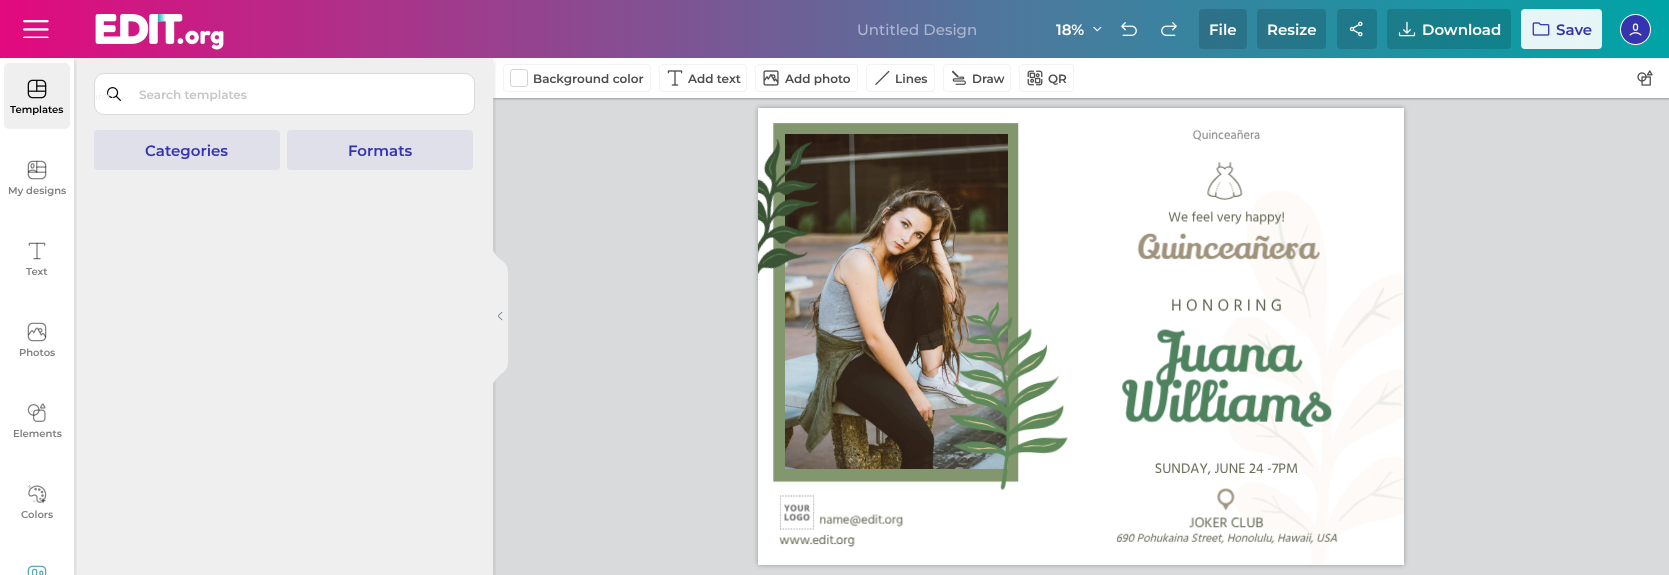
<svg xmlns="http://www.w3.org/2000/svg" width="1669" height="575">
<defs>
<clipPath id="clip1"><rect x="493" y="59" width="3" height="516"/></clipPath>
<clipPath id="clip2"><rect x="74" y="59" width="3" height="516"/></clipPath>
<linearGradient id="g1" gradientUnits="userSpaceOnUse" x1="0" y1="29" x2="1669" y2="29"><stop offset="0" stop-color="#e3097e"/><stop offset="0.6" stop-color="#4e779d"/><stop offset="1" stop-color="#00a4a6"/></linearGradient>
</defs>
<rect width="100%" height="100%" fill="#fff"/>
<rect x="493" y="98" width="1176" height="477" fill="#d8dadb"/>
<rect x="494" y="59" width="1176" height="40" fill="#0000004d" filter="blur(1px)"/>
<rect x="493" y="58" width="1176" height="40" fill="#fff"/>
<g clip-path="url(#clip1)">
<rect y="61" width="493" height="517" fill="#00000029" filter="blur(3px)"/>
</g>
<path d="M501 374c7-4 7-9 7-15v-84c0-6 0-11-7-15c-7-6-9-12-9-12v138c0 0 2-6 9-12" fill="#efefef"/>
<rect x="74" y="58" width="419" height="517" fill="#efefef"/>
<g clip-path="url(#clip2)">
<rect y="61" width="74" height="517" fill="#00000029" filter="blur(3px)"/>
</g>
<rect width="1669" height="58" fill="url(#g1)"/>
<image x="23" y="20" width="26" height="18" href="media/1.png"/>
<image x="95" y="14" width="129" height="36" href="media/2.png"/>
<text x="857" y="35" style="font-family:Montserrat;font-size:15px;font-weight:500;fill:#adb6cd">Untitled Design</text>
<text x="1056" y="35" style="font-family:Montserrat;font-size:15px;font-weight:600;fill:#fff">18%</text>
<image x="1093" y="27" width="9" height="5" href="media/3.png"/>
<image x="1121" y="22" width="16" height="14" href="media/4.png"/>
<image x="1161" y="22" width="16" height="14" href="media/5.png"/>
<rect x="1199" y="9" width="48" height="40" rx="4" fill="#00000026"/>
<text x="1209" y="35" style="font-family:Montserrat;font-size:15px;font-weight:600;fill:#fff">File</text>
<rect x="1257" y="9" width="69" height="40" rx="4" fill="#00000026"/>
<text x="1267" y="35" style="font-family:Montserrat;font-size:15px;font-weight:600;fill:#fff">Resize</text>
<rect x="1337" y="9" width="40" height="40" rx="4" fill="#00000026"/>
<image x="1349" y="21" width="14" height="16" href="media/6.png"/>
<rect x="1387" y="9" width="124" height="40" rx="4" fill="#00000026"/>
<image x="1398" y="21" width="18" height="16" href="media/7.png"/>
<text x="1422" y="35" style="font-family:Montserrat;font-size:15px;font-weight:600;fill:#fff">Download</text>
<rect x="1521" y="9" width="81" height="40" rx="4" fill="#ffffffe6"/>
<image x="1532" y="22" width="18" height="14" href="media/8.png"/>
<text x="1556" y="35" style="font-family:Montserrat;font-size:15px;font-weight:600;fill:#3533ad">Save</text>
<image x="1620" y="14" width="31" height="31" href="media/9.png"/>
<rect x="503.5" y="64.5" width="147" height="27" rx="3.5" fill="none" stroke="#f2f2f2"/>
<rect x="510.5" y="69.5" width="17" height="17" rx="2.5" fill="none" stroke="#d6d4d4"/>
<text x="533" y="83" style="font-family:Montserrat;font-size:12px;font-weight:600;fill:#4d4d4d">Background color</text>
<rect x="659.5" y="64.5" width="87" height="27" rx="3.5" fill="none" stroke="#f2f2f2"/>
<image x="667" y="70" width="16" height="16" href="media/10.png"/>
<text x="688" y="83" style="font-family:Montserrat;font-size:12px;font-weight:600;fill:#4d4d4d">Add text</text>
<rect x="755.5" y="64.5" width="102" height="27" rx="3.5" fill="none" stroke="#f2f2f2"/>
<image x="763" y="70" width="16" height="16" href="media/11.png"/>
<text x="785" y="83" style="font-family:Montserrat;font-size:12px;font-weight:600;fill:#4d4d4d">Add photo</text>
<rect x="866.5" y="64.5" width="68" height="27" rx="3.5" fill="none" stroke="#f2f2f2"/>
<image x="875" y="70" width="15" height="15" href="media/12.png"/>
<text x="895" y="83" style="font-family:Montserrat;font-size:12px;font-weight:600;fill:#4d4d4d">Lines</text>
<rect x="943.5" y="64.5" width="67" height="27" rx="3.5" fill="none" stroke="#f2f2f2"/>
<image x="952" y="70" width="14" height="15" href="media/13.png"/>
<text x="972" y="83" style="font-family:Montserrat;font-size:12px;font-weight:600;fill:#4d4d4d">Draw</text>
<rect x="1019.5" y="64.5" width="54" height="27" rx="3.5" fill="none" stroke="#f2f2f2"/>
<image x="1027" y="70" width="16" height="16" href="media/14.png"/>
<text x="1048" y="83" style="font-family:Montserrat;font-size:12px;font-weight:600;fill:#4d4d4d">QR</text>
<image x="1637" y="70" width="16" height="16" href="media/15.png"/>
<rect x="758" y="108" width="646" height="457" fill="#0000004d" filter="blur(2.5px)"/>
<rect x="758" y="108" width="646" height="15" fill="#fff"/>
<image x="758" y="123" width="646" height="442" href="media/16.png"/>
<rect x="4" y="63" width="66" height="66" rx="5" fill="#efefef"/>
<image x="27" y="79" width="20" height="20" href="media/17.png"/>
<rect x="94.5" y="73.5" width="380" height="41" rx="9.5" fill="#fff" stroke="#d7dadb"/>
<image x="107" y="87" width="14" height="14" href="media/24.png"/>
<text x="92" y="100" style="font-family:Montserrat;font-size:10px;fill:#eee">arch</text>
<text x="10" y="113" style="font-family:Montserrat;font-size:10px;font-weight:600;fill:#000">Templates</text>
<image x="27" y="160" width="20" height="20" href="media/18.png"/>
<text x="8" y="194" style="font-family:Montserrat;font-size:10px;font-weight:600;fill:#808080">My designs</text>
<image x="28" y="242" width="18" height="18" href="media/19.png"/>
<text x="26" y="275" style="font-family:Montserrat;font-size:10px;font-weight:600;fill:#808080">Text</text>
<image x="27" y="322" width="20" height="20" href="media/20.png"/>
<text x="19" y="356" style="font-family:Montserrat;font-size:10px;font-weight:600;fill:#808080">Photos</text>
<image x="27" y="403" width="19" height="19" href="media/21.png"/>
<text x="13" y="437" style="font-family:Montserrat;font-size:10px;font-weight:600;fill:#808080">Elements</text>
<image x="27" y="485" width="20" height="19" href="media/22.png"/>
<text x="21" y="518" style="font-family:Montserrat;font-size:10px;font-weight:600;fill:#808080">Colors</text>
<image x="27" y="565" width="20" height="10" href="media/23.png"/>
<text x="139" y="99" style="font-family:Montserrat;font-size:12px;font-weight:600;fill:#c6c6c6">Search templates</text>
<rect x="94" y="130" width="186" height="40" rx="4" fill="#e0e0ea"/>
<text x="145" y="156" style="font-family:Montserrat;font-size:15px;font-weight:600;fill:#3533ad">Categories</text>
<rect x="287" y="130" width="186" height="40" rx="4" fill="#e0e0ea"/>
<text x="348" y="156" style="font-family:Montserrat;font-size:15px;font-weight:600;fill:#3533ad">Formats</text>
<image x="498" y="312" width="5" height="9" href="media/25.png"/>
</svg>
